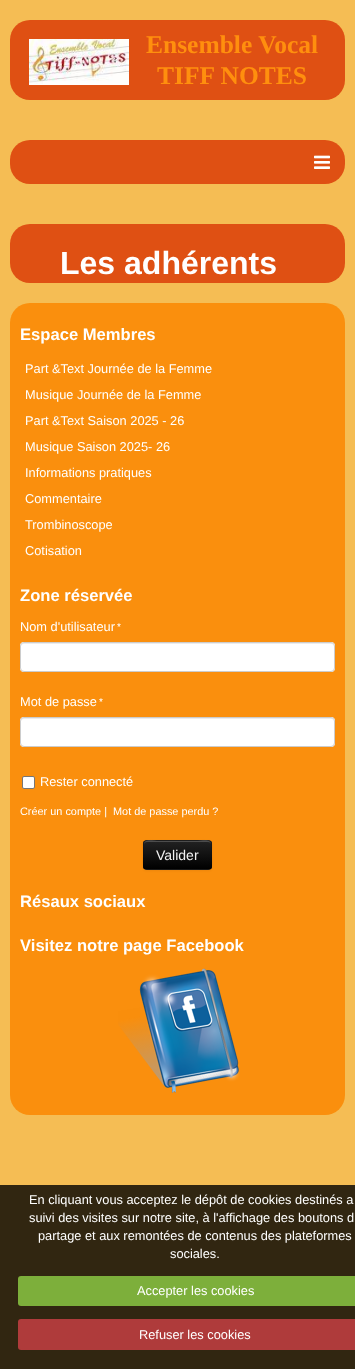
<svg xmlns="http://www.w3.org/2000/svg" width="355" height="1369">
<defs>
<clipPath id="clip1"><rect x="143" y="840" width="69" height="30" rx="4"/></clipPath>
<linearGradient id="g1" gradientUnits="userSpaceOnUse" x1="178" y1="841" x2="178" y2="869"><stop offset="0" stop-color="#222"/><stop offset="1" stop-color="#000"/></linearGradient>
</defs>
<rect width="100%" height="100%" fill="#f5bd54"/>
<rect x="10" y="20" width="335" height="80" rx="20" fill="#df5013"/>
<image x="29" y="39" width="100" height="46" href="media/1.png"/>
<text x="146" y="53" style="font-family:Liberation Serif;font-size:25.5px;font-weight:bold;fill:#ff8f0e">Ensemble Vocal</text>
<text x="157" y="84" style="font-family:Liberation Serif;font-size:25.5px;font-weight:bold;fill:#ff8f0e">TIFF NOTES</text>
<rect x="10" y="140" width="335" height="44" rx="20" fill="#df5013"/>
<image x="314" y="155" width="16" height="14" href="media/2.png"/>
<rect x="10" y="224" width="335" height="59" rx="20" fill="#df5013"/>
<text x="60" y="274" style="font-family:Liberation Sans;font-size:32px;font-weight:bold;fill:#fff">Les adhérents</text>
<rect x="10" y="303" width="335" height="812" rx="20" fill="#fa8f0d"/>
<text x="20" y="340" style="font-family:Liberation Sans;font-size:16.6px;font-weight:bold;fill:#fff">Espace Membres</text>
<text x="25" y="373" style="font-family:Liberation Sans;font-size:12.8px;fill:#fff">Part &amp;Text Journée de la Femme</text>
<text x="25" y="399" style="font-family:Liberation Sans;font-size:12.8px;fill:#fff">Musique Journée de la Femme</text>
<text x="25" y="425" style="font-family:Liberation Sans;font-size:12.8px;fill:#fff">Part &amp;Text Saison 2025 - 26</text>
<text x="25" y="451" style="font-family:Liberation Sans;font-size:12.8px;fill:#fff">Musique Saison 2025- 26</text>
<text x="25" y="477" style="font-family:Liberation Sans;font-size:12.8px;fill:#fff">Informations pratiques</text>
<text x="25" y="503" style="font-family:Liberation Sans;font-size:12.8px;fill:#fff">Commentaire</text>
<text x="25" y="529" style="font-family:Liberation Sans;font-size:12.8px;fill:#fff">Trombinoscope</text>
<text x="25" y="555" style="font-family:Liberation Sans;font-size:12.8px;fill:#fff">Cotisation</text>
<text x="20" y="601" style="font-family:Liberation Sans;font-size:16.6px;font-weight:bold;fill:#fff">Zone réservée</text>
<text x="20" y="631" style="font-family:Liberation Sans;font-size:12.8px;fill:#fff">Nom d'utilisateur</text>
<text x="117" y="630" style="font-family:Liberation Sans;font-size:10px;fill:#fff">*</text>
<rect x="20" y="642" width="315" height="30" rx="4" fill="#fff"/>
<path d="M24 644h307c2 0 3 1 3 3l-1-3l-1-1h-308c-2 0-3 2-3 4c0-2 1-3 3-3z" fill="#ececec"/>
<rect x="20.5" y="642.5" width="314" height="29" rx="3.5" fill="none" stroke="#ccc"/>
<text x="20" y="706" style="font-family:Liberation Sans;font-size:12.8px;fill:#fff">Mot de passe</text>
<text x="99" y="705" style="font-family:Liberation Sans;font-size:10px;fill:#fff">*</text>
<rect x="20" y="717" width="315" height="30" rx="4" fill="#fff"/>
<path d="M24 719h307c2 0 3 1 3 3l-1-3l-1-1h-308c-2 0-3 2-3 4c0-2 1-3 3-3z" fill="#ececec"/>
<rect x="20.5" y="717.5" width="314" height="29" rx="3.5" fill="none" stroke="#ccc"/>
<rect x="22.5" y="776.5" width="12" height="12" rx="1.5" fill="#fff" stroke="#767676"/>
<text x="40" y="786" style="font-family:Liberation Sans;font-size:12.8px;fill:#fff">Rester connecté</text>
<text x="20" y="815" style="font-family:Liberation Sans;font-size:10.9px;fill:#fff">Créer un compte |</text>
<text x="113" y="815" style="font-family:Liberation Sans;font-size:10.9px;fill:#fff">Mot de passe perdu ?</text>
<rect x="143" y="841" width="69" height="30" rx="4" fill="#0000000d" filter="blur(1px)"/>
<rect x="143" y="840" width="69" height="30" rx="4" fill="#222"/>
<g clip-path="url(#clip1)">
<rect x="143" y="841" width="69" height="28" fill="url(#g1)"/>
</g>
<path d="M147 842h61c2 0 3 1 3 3c0-7-9-4-13-4h-41c-4 0-13-3-13 4c0-2 1-3 3-3z" fill="#4d4d4d"/>
<path d="M210.5 868.5l-2 1h-62l-2-1" fill="none" stroke="#00000040"/>
<path d="M144.5 868.5c-2-2-1-10.5-1-13.5c0-16-2.5-14.5 13.5-14.5h41c16 0 13.5-1.5 13.5 14.5c0 3 1 11.5-1 13.5" fill="none" stroke="#0000001a"/>
<text x="156" y="860" style="font-family:Liberation Sans;font-size:14px;fill:#f2f2f2">Valider</text>
<text x="20" y="907" style="font-family:Liberation Sans;font-size:16.6px;font-weight:bold;fill:#fff">Résaux sociaux</text>
<text x="20" y="951" style="font-family:Liberation Sans;font-size:16.6px;font-weight:bold;fill:#fff">Visitez notre page Facebook</text>
<image x="118" y="968" width="122" height="125" href="media/3.png"/>
<rect y="1185" width="355" height="184" fill="#312611"/>
<text x="29" y="1204" style="font-family:Liberation Sans;font-size:12.8px;fill:#fff">En cliquant vous acceptez le dépôt de cookies destinés a</text>
<text x="29" y="1222" style="font-family:Liberation Sans;font-size:12.8px;fill:#fff">suivi des visites sur notre site, à l'affichage des boutons d</text>
<text x="38" y="1240" style="font-family:Liberation Sans;font-size:12.8px;fill:#fff">partage et aux remontées de contenus des plateformes</text>
<text x="170" y="1258" style="font-family:Liberation Sans;font-size:12.8px;fill:#fff">sociales.</text>
<rect x="18" y="1276" width="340" height="30" rx="3" fill="#7daf3b"/>
<text x="137" y="1295" style="font-family:Liberation Sans;font-size:12.8px;fill:#fff">Accepter les cookies</text>
<rect x="18" y="1319" width="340" height="31" rx="3" fill="#af3b3b"/>
<text x="139" y="1339" style="font-family:Liberation Sans;font-size:12.8px;fill:#fff">Refuser les cookies</text>
</svg>
